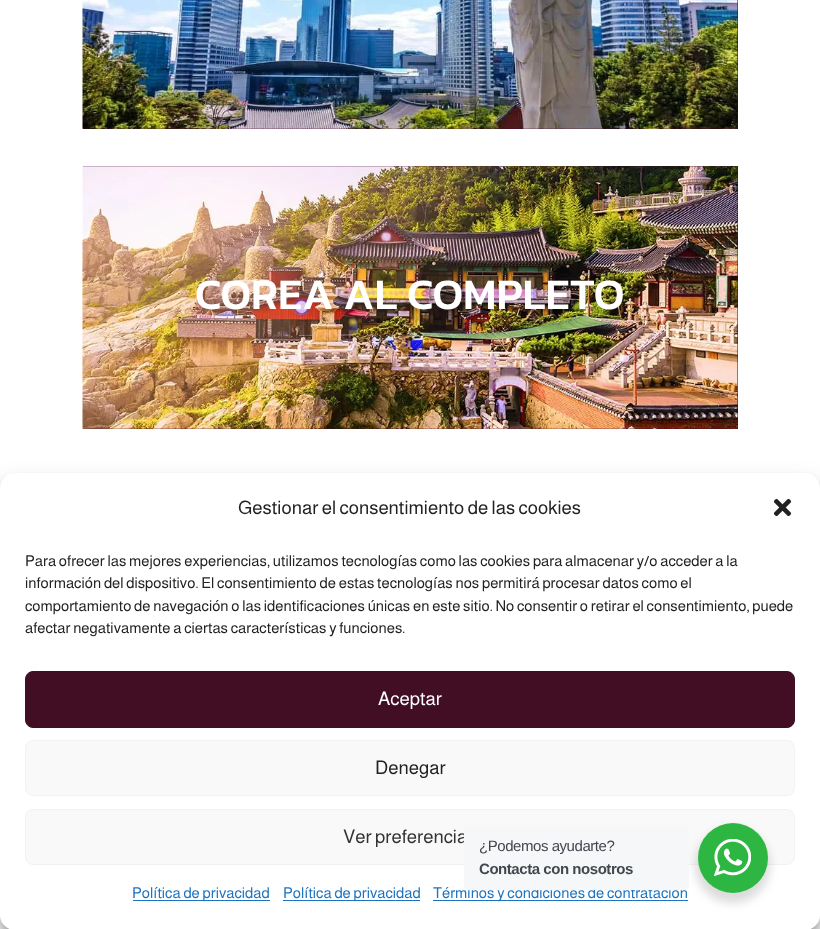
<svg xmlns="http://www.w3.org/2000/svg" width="820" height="929">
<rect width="100%" height="100%" fill="#fff"/>
<rect x="83" width="655" height="129" fill="#490027"/>
<image x="82" y="0" width="656" height="129" href="media/1.png"/>
<rect x="83" y="166" width="655" height="263" fill="#490027"/>
<image x="82" y="166" width="656" height="263" href="media/2.png"/>
<text x="195" y="309" style="font-family:Kanit;font-size:43.75px;font-weight:500;fill:#fff">COREA AL COMPLETO</text>
<rect y="480" width="820" height="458" rx="15" fill="#0000003b" filter="blur(4px)"/>
<rect y="485" width="820" height="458" rx="15" fill="#00000030" filter="blur(12.5px)"/>
<rect y="473" width="820" height="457" rx="15" fill="#fff"/>
<text x="238" y="514" style="font-family:Almarai;font-size:18.75px;fill:#222">Gestionar el consentimiento de las cookies</text>
<image x="773" y="498" width="19" height="19" href="media/3.png"/>
<text x="25" y="566" style="font-family:Almarai;font-size:15px;fill:#222">Para ofrecer las mejores experiencias, utilizamos tecnologías como las cookies para almacenar y/o acceder a la</text>
<text x="25" y="588" style="font-family:Almarai;font-size:15px;fill:#222">información del dispositivo. El consentimiento de estas tecnologías nos permitirá procesar datos como el</text>
<text x="25" y="611" style="font-family:Almarai;font-size:15px;fill:#222">comportamiento de navegación o las identificaciones únicas en este sitio. No consentir o retirar el consentimiento, puede</text>
<text x="25" y="633" style="font-family:Almarai;font-size:15px;fill:#222">afectar negativamente a ciertas características y funciones.</text>
<rect x="25.5" y="671.5" width="769" height="56" rx="7.5" fill="#420e23" stroke="#420e23"/>
<text x="378" y="705" style="font-family:Almarai;font-size:18.75px;fill:#fff">Aceptar</text>
<rect x="25.5" y="740.5" width="769" height="55" rx="7.5" fill="#f9f9f9" stroke="#f2f2f2"/>
<text x="375" y="774" style="font-family:Almarai;font-size:18.75px;fill:#222">Denegar</text>
<rect x="25.5" y="809.5" width="769" height="55" rx="7.5" fill="#f9f9f9" stroke="#f2f2f2"/>
<text x="343" y="843" style="font-family:Almarai;font-size:18.75px;fill:#333">Ver preferencia</text>
<rect x="133" y="900" width="137" height="1" fill="#1e73be"/>
<text x="132" y="898" style="font-family:Almarai;font-size:15px;fill:#1e73be">Política de privacidad</text>
<rect x="283" y="900" width="137" height="1" fill="#1e73be"/>
<text x="283" y="898" style="font-family:Almarai;font-size:15px;fill:#1e73be">Política de privacidad</text>
<rect x="433" y="900" width="255" height="1" fill="#1e73be"/>
<text x="433" y="898" style="font-family:Almarai;font-size:15px;fill:#1e73be">Términos y condiciones de contratación</text>
<rect x="695" y="828" width="75" height="75" rx="37.5" fill="#00000024" filter="blur(5px)"/>
<rect x="464" y="825" width="225" height="65" rx="5" fill="#f5f7f9"/>
<text x="479" y="851" style="font-family:Liberation Sans;font-size:15px;letter-spacing:-0.45px;fill:#43474e">¿Podemos ayudarte?</text>
<text x="479" y="874" style="font-family:Liberation Sans;font-size:15px;font-weight:bold;letter-spacing:-0.45px;fill:#43474e">Contacta con nosotros</text>
<circle cx="733" cy="858" r="35" fill="#2db742"/>
<image x="714" y="839" width="37" height="37" href="media/4.png"/>
</svg>
